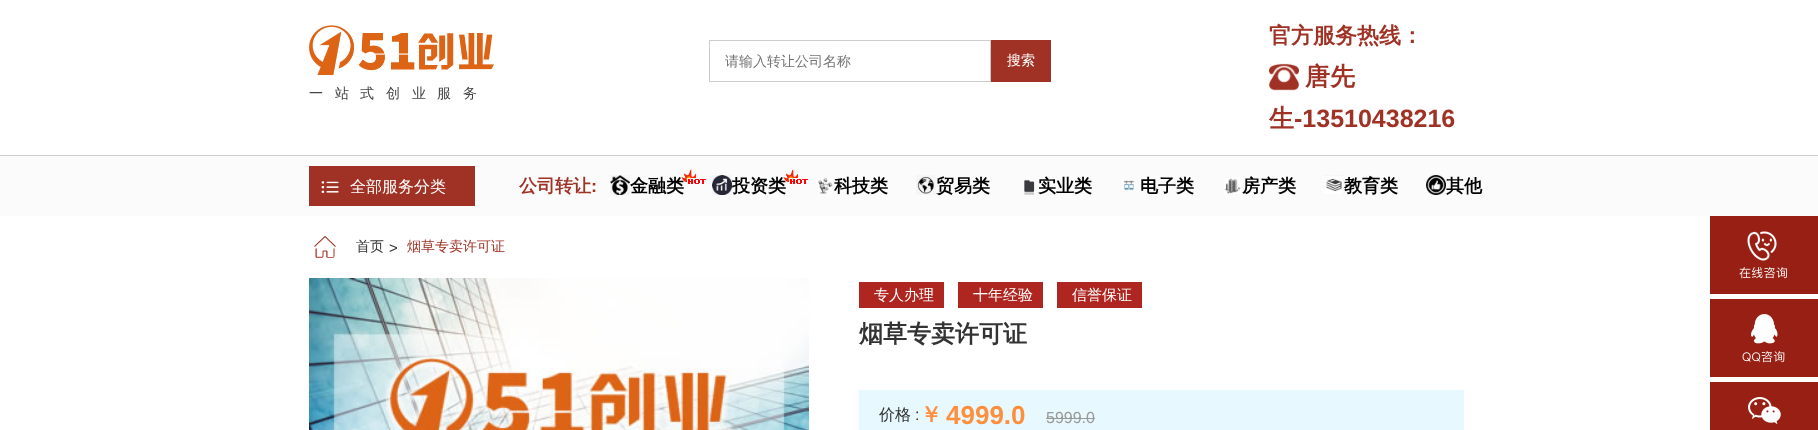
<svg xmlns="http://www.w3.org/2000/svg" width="1818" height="430">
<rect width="100%" height="100%" fill="#fff"/>
<rect x="709.5" y="40.5" width="281" height="41" fill="none" stroke="#ccc"/>
<text x="725" y="66" style="font-family:WenQuanYi Zen Hei;font-size:14px;font-weight:500;fill:#757575">请输入转让公司名称</text>
<rect x="991" y="40" width="60" height="42" fill="#a03225"/>
<text x="1007" y="65" style="font-family:WenQuanYi Zen Hei;font-size:14px;font-weight:500;fill:#fff">搜索</text>
<text x="1269" y="43" style="font-family:WenQuanYi Zen Hei;font-size:22px;font-weight:bold;fill:#a03225">官方服务热线：</text>
<image x="1269" y="63" width="30" height="28" href="media/1.png"/>
<text x="1305" y="85" style="font-family:WenQuanYi Zen Hei;font-size:25px;font-weight:bold;fill:#a03225">唐先</text>
<text x="1269" y="127" style="font-family:WenQuanYi Zen Hei;font-size:25px;font-weight:bold;fill:#a03225">生</text>
<text x="1294" y="127" style="font-family:Liberation Sans;font-size:25px;font-weight:bold;fill:#a03225">-13510438216</text>
<image x="309" y="25" width="185" height="50" href="media/2.png"/>
<text x="309" y="98" style="font-family:WenQuanYi Zen Hei;font-size:14px;font-weight:500;fill:#444">一</text>
<text x="335" y="98" style="font-family:WenQuanYi Zen Hei;font-size:14px;font-weight:500;fill:#444">站</text>
<text x="360" y="98" style="font-family:WenQuanYi Zen Hei;font-size:14px;font-weight:500;fill:#444">式</text>
<text x="386" y="98" style="font-family:WenQuanYi Zen Hei;font-size:14px;font-weight:500;fill:#444">创</text>
<text x="412" y="98" style="font-family:WenQuanYi Zen Hei;font-size:14px;font-weight:500;fill:#444">业</text>
<text x="437" y="98" style="font-family:WenQuanYi Zen Hei;font-size:14px;font-weight:500;fill:#444">服</text>
<text x="463" y="98" style="font-family:WenQuanYi Zen Hei;font-size:14px;font-weight:500;fill:#444">务</text>
<rect y="156" width="1818" height="60" fill="#fbfbfb"/>
<rect y="155" width="1818" height="1" fill="#ccc"/>
<rect x="309" y="166" width="166" height="40" fill="#a03225"/>
<image x="321" y="181" width="18" height="12" href="media/3.png"/>
<text x="350" y="192" style="font-family:WenQuanYi Zen Hei;font-size:16px;font-weight:500;fill:#fff">全部服务分类</text>
<text x="519" y="192" style="font-family:WenQuanYi Zen Hei;font-size:18px;font-weight:bold;fill:#a03225">公司转让</text>
<text x="591" y="192" style="font-family:Liberation Sans;font-size:18px;font-weight:bold;fill:#a03225">:</text>
<image x="610" y="175" width="20" height="20" href="media/4.png"/>
<text x="630" y="192" style="font-family:WenQuanYi Zen Hei;font-size:18px;font-weight:bold;fill:#000">金融类</text>
<image x="681" y="169" width="25" height="15" href="media/5.png"/>
<image x="712" y="175" width="20" height="20" href="media/6.png"/>
<text x="732" y="192" style="font-family:WenQuanYi Zen Hei;font-size:18px;font-weight:bold;fill:#000">投资类</text>
<image x="783" y="169" width="25" height="15" href="media/5.png"/>
<image x="818" y="178" width="15" height="16" href="media/7.png"/>
<text x="834" y="192" style="font-family:WenQuanYi Zen Hei;font-size:18px;font-weight:bold;fill:#000">科技类</text>
<image x="916" y="175" width="20" height="20" href="media/8.png"/>
<text x="936" y="192" style="font-family:WenQuanYi Zen Hei;font-size:18px;font-weight:bold;fill:#000">贸易类</text>
<image x="1024" y="179" width="11" height="16" href="media/9.png"/>
<text x="1038" y="192" style="font-family:WenQuanYi Zen Hei;font-size:18px;font-weight:bold;fill:#000">实业类</text>
<image x="1124" y="180" width="11" height="11" href="media/10.png"/>
<text x="1140" y="192" style="font-family:WenQuanYi Zen Hei;font-size:18px;font-weight:bold;fill:#000">电子类</text>
<image x="1224" y="178" width="17" height="16" href="media/11.png"/>
<text x="1242" y="192" style="font-family:WenQuanYi Zen Hei;font-size:18px;font-weight:bold;fill:#000">房产类</text>
<image x="1324" y="175" width="20" height="20" href="media/12.png"/>
<text x="1344" y="192" style="font-family:WenQuanYi Zen Hei;font-size:18px;font-weight:bold;fill:#000">教育类</text>
<image x="1426" y="175" width="20" height="20" href="media/13.png"/>
<text x="1446" y="192" style="font-family:WenQuanYi Zen Hei;font-size:18px;font-weight:bold;fill:#000">其他</text>
<image x="314" y="236" width="22" height="22" href="media/14.png"/>
<text x="356" y="251" style="font-family:WenQuanYi Zen Hei;font-size:14px;font-weight:500;fill:#333">首页</text>
<text x="389" y="253" style="font-family:Liberation Sans;font-size:15px;fill:#333">&gt;</text>
<text x="407" y="251" style="font-family:WenQuanYi Zen Hei;font-size:14px;font-weight:500;fill:#a03225">烟草专卖许可证</text>
<image x="309" y="278" width="500" height="152" href="media/15.png"/>
<rect x="859" y="282" width="85" height="26" fill="#af2620"/>
<text x="874" y="300" style="font-family:WenQuanYi Zen Hei;font-size:15px;font-weight:500;fill:#fff">专人办理</text>
<rect x="958" y="282" width="85" height="26" fill="#af2620"/>
<text x="973" y="300" style="font-family:WenQuanYi Zen Hei;font-size:15px;font-weight:500;fill:#fff">十年经验</text>
<rect x="1057" y="282" width="85" height="26" fill="#af2620"/>
<text x="1072" y="300" style="font-family:WenQuanYi Zen Hei;font-size:15px;font-weight:500;fill:#fff">信誉保证</text>
<text x="859" y="342" style="font-family:WenQuanYi Zen Hei;font-size:24px;font-weight:bold;fill:#333">烟草专卖许可证</text>
<rect x="859" y="390" width="605" height="40" fill="#e7f9fe"/>
<text x="879" y="420" style="font-family:WenQuanYi Zen Hei;font-size:16px;font-weight:500;fill:#333">价格</text>
<text x="915" y="420" style="font-family:Liberation Sans;font-size:16px;fill:#333">:</text>
<text x="920" y="422" style="font-family:WenQuanYi Zen Hei;font-size:22px;font-weight:bold;fill:#ff8f3d">￥</text>
<text x="946" y="424" style="font-family:Liberation Sans;font-size:26px;font-weight:bold;fill:#ff8f3d">4999.0</text>
<text x="1046" y="423" style="font-family:Liberation Sans;font-size:16px;fill:#999">5999.0</text>
<rect x="1046" y="418" width="49" height="1" fill="#999"/>
<image x="1710" y="216" width="108" height="78" href="media/16.png"/>
<image x="1710" y="299" width="108" height="78" href="media/17.png"/>
<image x="1710" y="382" width="108" height="48" href="media/18.png"/>
</svg>
